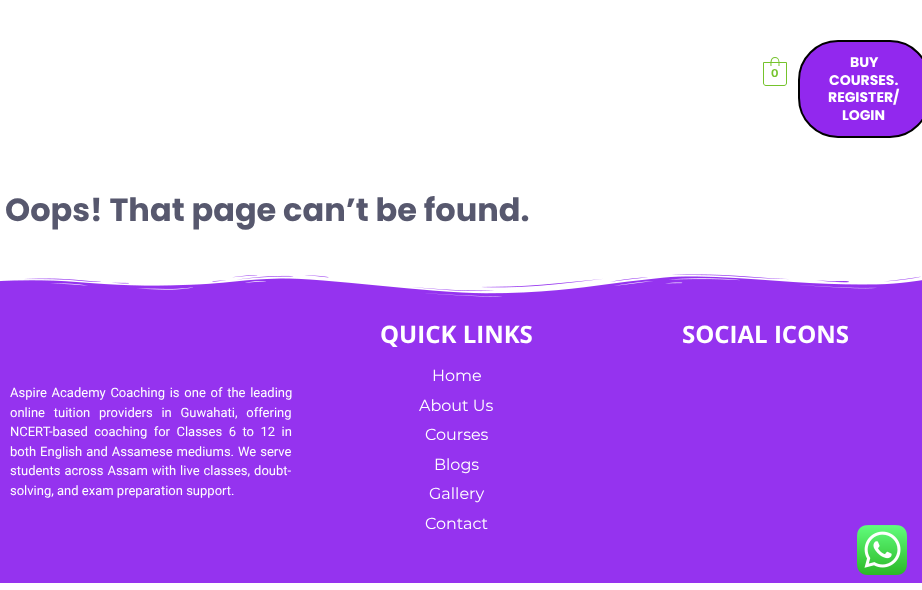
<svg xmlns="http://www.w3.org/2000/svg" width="922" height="590">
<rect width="100%" height="100%" fill="#fff"/>
<path d="M763.5 62.5h23v20.5c0 1.5-1 2.5-2.5 2.5h-18c-1.5 0-2.5-1-2.5-2.5z" fill="none" stroke="#75c32c"/>
<path d="M775 57c5 0 4.5 5.5 4.5 9h-9c0-3.5-.5-9 4.5-9zm0 1c4.5 0 3.5 5 3.5 8h-7c0-3-.5-8 3.5-8z" fill="#75c32c" fill-rule="evenodd"/>
<text x="771" y="77" style="font-family:Inter;font-size:11px;font-weight:bold;fill:#75c32c">0</text>
<rect x="799" y="41" width="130" height="96" rx="39" fill="#9228ee" stroke="#000" stroke-width="2"/>
<text x="850" y="67" style="font-family:Poppins;font-size:14px;font-weight:bold;fill:#fff">BUY</text>
<text x="829" y="85" style="font-family:Poppins;font-size:14px;font-weight:bold;fill:#fff">COURSES.</text>
<text x="828" y="102" style="font-family:Poppins;font-size:14px;font-weight:bold;fill:#fff">REGISTER/</text>
<text x="842" y="120" style="font-family:Poppins;font-size:14px;font-weight:bold;fill:#fff">LOGIN</text>
<text x="5" y="221" style="font-family:Poppins;font-size:32px;font-weight:bold;fill:#57586e">Oops! That page can’t be found.</text>
<rect y="274" width="922" height="309" fill="#9533ef"/>
<image x="0" y="272" width="922" height="25" href="media/1.png"/>
<text x="380" y="343" style="font-family:Open Sans;font-size:24px;font-weight:bold;fill:#fff">QUICK LINKS</text>
<text x="432" y="381" style="font-family:Montserrat;font-size:16px;fill:#fff">Home</text>
<text x="419" y="411" style="font-family:Montserrat;font-size:16px;fill:#fff">About Us</text>
<text x="425" y="440" style="font-family:Montserrat;font-size:16px;fill:#fff">Courses</text>
<text x="434" y="470" style="font-family:Montserrat;font-size:16px;fill:#fff">Blogs</text>
<text x="429" y="499" style="font-family:Montserrat;font-size:16px;fill:#fff">Gallery</text>
<text x="425" y="529" style="font-family:Montserrat;font-size:16px;fill:#fff">Contact</text>
<text x="682" y="343" style="font-family:Open Sans;font-size:24px;font-weight:bold;fill:#fff">SOCIAL ICONS</text>
<text x="10" y="397" word-spacing="1.5" style="font-family:Roboto;font-size:13px;fill:#fff">Aspire Academy Coaching is one of the leading</text>
<text x="10" y="417" word-spacing="5.5" style="font-family:Roboto;font-size:13px;fill:#fff">online tuition providers in Guwahati, offering</text>
<text x="10" y="436" word-spacing="3.25" style="font-family:Roboto;font-size:13px;fill:#fff">NCERT-based coaching for Classes 6 to 12 in</text>
<text x="10" y="456" word-spacing="0.75" style="font-family:Roboto;font-size:13px;fill:#fff">both English and Assamese mediums. We serve</text>
<text x="10" y="475" word-spacing="0.75" style="font-family:Roboto;font-size:13px;fill:#fff">students across Assam with live classes, doubt-</text>
<text x="10" y="495" style="font-family:Roboto;font-size:13px;fill:#fff">solving, and exam preparation support.</text>
<image x="857" y="525" width="50" height="50" href="media/2.png"/>
</svg>
